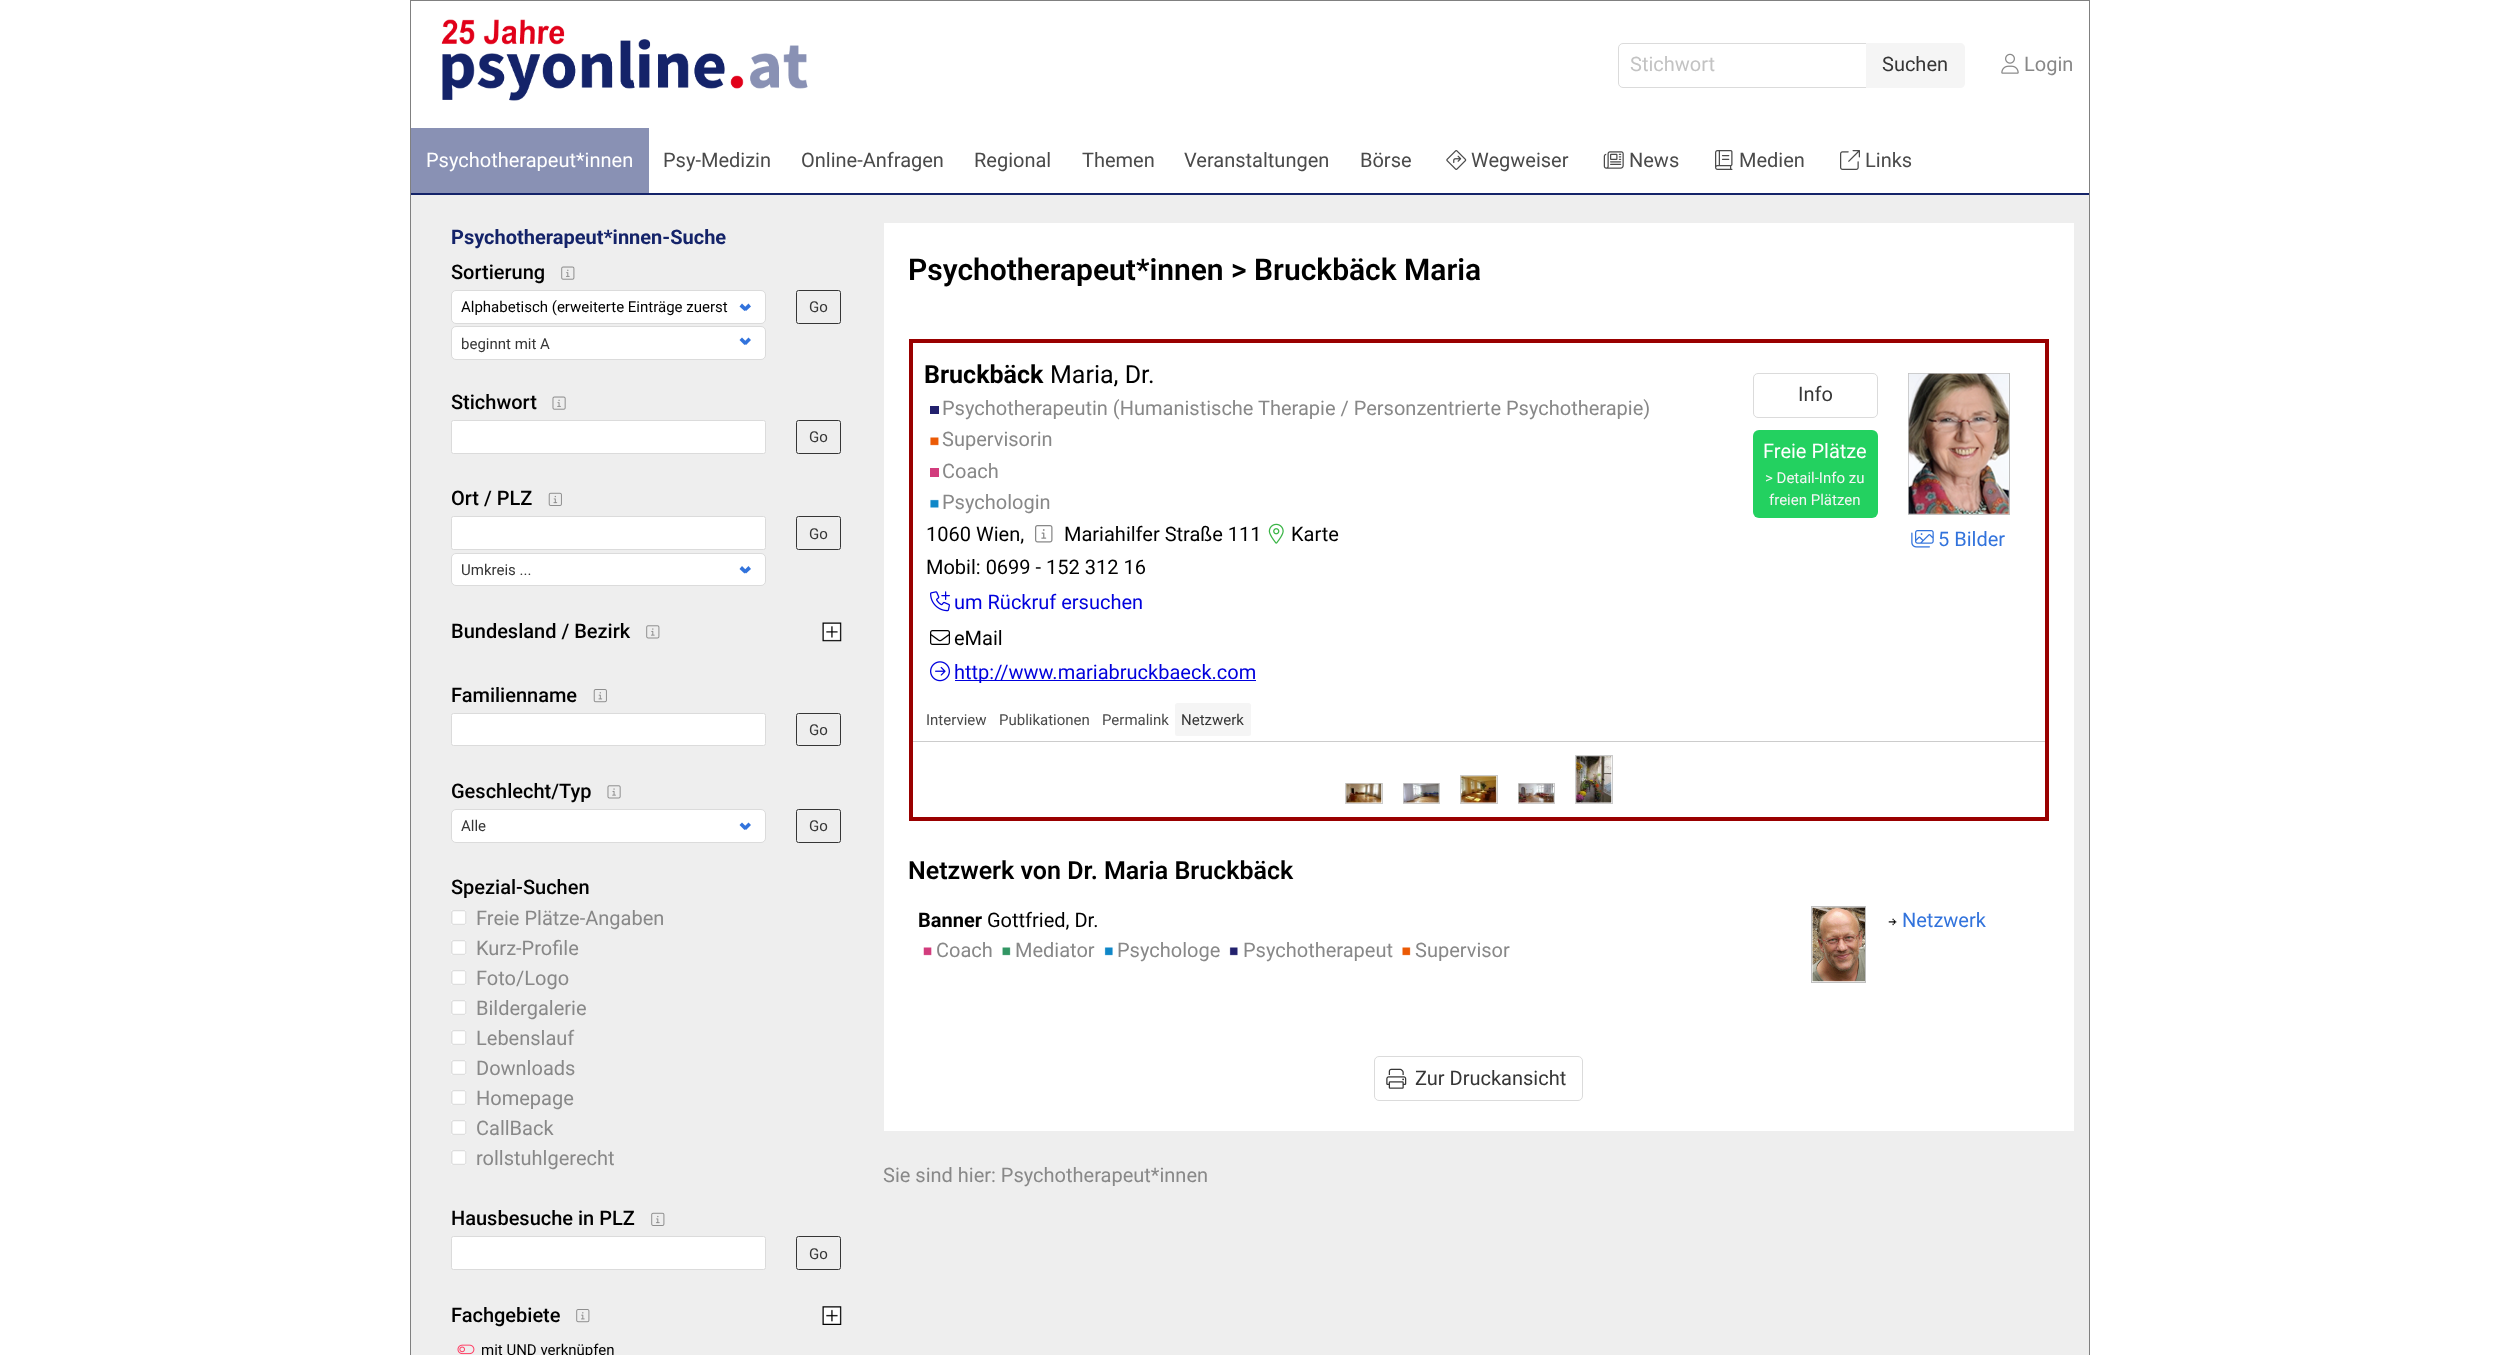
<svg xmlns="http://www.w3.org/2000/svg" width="2500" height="1355">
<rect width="100%" height="100%" fill="#fff"/>
<rect x="410.5" y="0.5" width="1679" height="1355" fill="none" stroke="#808080"/>
<image x="441" y="19" width="367" height="82" href="media/1.png"/>
<path d="M1623 43.5h244.5v44h-244.5c-2.5 0-4.5-2-4.5-4.5v-35c0-2.5 2-4.5 4.5-4.5z" fill="none" stroke="#dbdbdb"/>
<text x="1630" y="71" style="font-family:Roboto;font-size:20px;fill:#c3c3c3">Stichwort</text>
<path d="M1866 43h94c3 0 5 2 5 5v35c0 3-2 5-5 5h-94z" fill="#f5f5f5"/>
<text x="1882" y="71" style="font-family:Roboto;font-size:20px;fill:#363636">Suchen</text>
<image x="2001" y="53" width="18" height="21" href="media/2.png"/>
<text x="2024" y="71" style="font-family:Roboto;font-size:20px;fill:#888">Login</text>
<rect x="411" y="128" width="238" height="65" fill="#8991b4"/>
<text x="426" y="167" style="font-family:Roboto;font-size:20px;fill:#fff">Psychotherapeut*innen</text>
<text x="663" y="167" style="font-family:Roboto;font-size:20px;fill:#4a4a4a">Psy-Medizin</text>
<text x="801" y="167" style="font-family:Roboto;font-size:20px;fill:#4a4a4a">Online-Anfragen</text>
<text x="974" y="167" style="font-family:Roboto;font-size:20px;fill:#4a4a4a">Regional</text>
<text x="1082" y="167" style="font-family:Roboto;font-size:20px;fill:#4a4a4a">Themen</text>
<text x="1184" y="167" style="font-family:Roboto;font-size:20px;fill:#4a4a4a">Veranstaltungen</text>
<text x="1360" y="167" style="font-family:Roboto;font-size:20px;fill:#4a4a4a">Börse</text>
<image x="1446" y="150" width="21" height="20" href="media/3.png"/>
<text x="1471" y="167" style="font-family:Roboto;font-size:20px;fill:#4a4a4a">Wegweiser</text>
<image x="1603" y="151" width="21" height="18" href="media/4.png"/>
<text x="1629" y="167" style="font-family:Roboto;font-size:20px;fill:#4a4a4a">News</text>
<image x="1715" y="150" width="18" height="20" href="media/5.png"/>
<text x="1739" y="167" style="font-family:Roboto;font-size:20px;fill:#4a4a4a">Medien</text>
<image x="1840" y="150" width="20" height="20" href="media/6.png"/>
<text x="1865" y="167" style="font-family:Roboto;font-size:20px;fill:#4a4a4a">Links</text>
<rect x="411" y="193" width="1678" height="2" fill="#142369"/>
<rect x="411" y="195" width="1678" height="1160" fill="#eee"/>
<text x="451" y="244" style="font-family:Roboto;font-size:20px;font-weight:bold;fill:#142369">Psychotherapeut*innen-Suche</text>
<text x="451" y="279" style="font-family:Roboto;font-size:20px;font-weight:500;fill:#000">Sortierung</text>
<image x="561" y="266" width="14" height="14" href="media/7.png"/>
<rect x="451.5" y="290.5" width="314" height="33" rx="4.5" fill="#fff" stroke="#dbdbdb"/>
<text x="461" y="312" style="font-family:Roboto;font-size:15px;fill:#000">Alphabetisch (erweiterte Einträge zuerst</text>
<path d="M743.5 308.5l5-5l2.5 3l-5 4.5z" fill="#3273dc"/>
<rect x="451.5" y="326.5" width="314" height="33" rx="4.5" fill="#fff" stroke="#dbdbdb"/>
<path d="M739.5 306.5l2.5-3l5 5l-2.5 2.5zm4 36l5-5l2.5 2.5l-5 5z" fill="#3273dc"/>
<text x="461" y="349" style="font-family:Roboto;font-size:15px;fill:#363636">beginnt mit A</text>
<path d="M739.5 340l2.5-2.5l5 5l-2.5 2.5z" fill="#3273dc"/>
<rect x="796.5" y="290.5" width="44" height="33" rx="2" fill="none" stroke="#363636"/>
<text x="809" y="312" style="font-family:Roboto;font-size:15px;fill:#363636">Go</text>
<text x="451" y="409" style="font-family:Roboto;font-size:20px;font-weight:500;fill:#000">Stichwort</text>
<image x="552" y="396" width="14" height="14" href="media/8.png"/>
<rect x="451.5" y="420.5" width="314" height="33" rx="2" fill="#fff" stroke="#dbdbdb"/>
<rect x="796.5" y="420.5" width="44" height="33" rx="2" fill="none" stroke="#363636"/>
<text x="809" y="442" style="font-family:Roboto;font-size:15px;fill:#363636">Go</text>
<text x="451" y="505" style="font-family:Roboto;font-size:20px;font-weight:500;fill:#000">Ort / PLZ</text>
<image x="548" y="492" width="14" height="14" href="media/9.png"/>
<rect x="796.5" y="516.5" width="44" height="33" rx="2" fill="none" stroke="#363636"/>
<text x="809" y="539" style="font-family:Roboto;font-size:15px;fill:#363636">Go</text>
<rect x="451.5" y="516.5" width="314" height="33" rx="2" fill="#fff" stroke="#dbdbdb"/>
<rect x="451.5" y="553.5" width="314" height="32" rx="4.5" fill="#fff" stroke="#dbdbdb"/>
<text x="461" y="575" style="font-family:Roboto;font-size:15px;fill:#363636">Umkreis ...</text>
<path d="M743.5 571l5-5l2.5 3l-5 4.5z" fill="#3273dc"/>
<path d="M739.5 569l2.5-3l5 5l-2.5 2.5z" fill="#3273dc"/>
<text x="451" y="638" style="font-family:Roboto;font-size:20px;font-weight:500;fill:#000">Bundesland / Bezirk</text>
<image x="646" y="625" width="14" height="14" href="media/10.png"/>
<image x="822" y="622" width="20" height="20" href="media/11.png"/>
<text x="451" y="702" style="font-family:Roboto;font-size:20px;font-weight:500;fill:#000">Familienname</text>
<image x="593" y="689" width="14" height="14" href="media/12.png"/>
<rect x="451.5" y="713.5" width="314" height="32" rx="2" fill="#fff" stroke="#dbdbdb"/>
<rect x="796.5" y="713.5" width="44" height="32" rx="2" fill="none" stroke="#363636"/>
<text x="809" y="735" style="font-family:Roboto;font-size:15px;fill:#363636">Go</text>
<text x="451" y="798" style="font-family:Roboto;font-size:20px;font-weight:500;fill:#000">Geschlecht/Typ</text>
<image x="607" y="785" width="14" height="14" href="media/13.png"/>
<rect x="451.5" y="809.5" width="314" height="33" rx="4.5" fill="#fff" stroke="#dbdbdb"/>
<text x="461" y="831" style="font-family:Roboto;font-size:15px;fill:#363636">Alle</text>
<path d="M743.5 827.5l5-5l2.5 2.5l-5 5z" fill="#3273dc"/>
<path d="M739.5 825l2.5-2.5l5 5l-2.5 2.5z" fill="#3273dc"/>
<rect x="796.5" y="809.5" width="44" height="33" rx="2" fill="none" stroke="#363636"/>
<text x="809" y="831" style="font-family:Roboto;font-size:15px;fill:#363636">Go</text>
<text x="451" y="894" style="font-family:Roboto;font-size:20px;font-weight:500;fill:#000">Spezial-Suchen</text>
<image x="451" y="910" width="16" height="15" href="media/14.png"/>
<text x="476" y="925" style="font-family:Roboto;font-size:20px;fill:#888">Freie Plätze-Angaben</text>
<image x="451" y="940" width="16" height="15" href="media/14.png"/>
<text x="476" y="955" style="font-family:Roboto;font-size:20px;fill:#888">Kurz-Profile</text>
<image x="451" y="970" width="16" height="15" href="media/14.png"/>
<text x="476" y="985" style="font-family:Roboto;font-size:20px;fill:#888">Foto/Logo</text>
<image x="451" y="1000" width="16" height="15" href="media/14.png"/>
<text x="476" y="1015" style="font-family:Roboto;font-size:20px;fill:#888">Bildergalerie</text>
<image x="451" y="1030" width="16" height="15" href="media/14.png"/>
<text x="476" y="1045" style="font-family:Roboto;font-size:20px;fill:#888">Lebenslauf</text>
<image x="451" y="1060" width="16" height="15" href="media/14.png"/>
<text x="476" y="1075" style="font-family:Roboto;font-size:20px;fill:#888">Downloads</text>
<image x="451" y="1090" width="16" height="15" href="media/14.png"/>
<text x="476" y="1105" style="font-family:Roboto;font-size:20px;fill:#888">Homepage</text>
<image x="451" y="1120" width="16" height="15" href="media/14.png"/>
<text x="476" y="1135" style="font-family:Roboto;font-size:20px;fill:#888">CallBack</text>
<image x="451" y="1150" width="16" height="15" href="media/14.png"/>
<text x="476" y="1165" style="font-family:Roboto;font-size:20px;fill:#888">rollstuhlgerecht</text>
<text x="451" y="1225" style="font-family:Roboto;font-size:20px;font-weight:500;fill:#000">Hausbesuche in PLZ</text>
<image x="651" y="1212" width="14" height="14" href="media/15.png"/>
<rect x="451.5" y="1236.5" width="314" height="33" rx="2" fill="#fff" stroke="#dbdbdb"/>
<rect x="796.5" y="1236.5" width="44" height="33" rx="2" fill="none" stroke="#363636"/>
<text x="809" y="1259" style="font-family:Roboto;font-size:15px;fill:#363636">Go</text>
<text x="451" y="1322" style="font-family:Roboto;font-size:20px;font-weight:500;fill:#000">Fachgebiete</text>
<image x="576" y="1309" width="14" height="14" href="media/16.png"/>
<image x="822" y="1306" width="20" height="19" href="media/17.png"/>
<image x="457" y="1344" width="18" height="11" href="media/18.png"/>
<text x="481" y="1355" style="font-family:Roboto;font-size:15px;fill:#000">mit UND verknüpfen</text>
<rect x="884" y="223" width="1190" height="908" fill="#fff"/>
<text x="908" y="280" style="font-family:Roboto;font-size:30px;font-weight:600;fill:#000">Psychotherapeut*innen &gt; Bruckbäck Maria</text>
<rect x="911" y="341" width="1136" height="478" fill="none" stroke="#900" stroke-width="4"/>
<text x="924" y="383" style="font-family:Roboto;font-size:25px;font-weight:bold;fill:#000">Bruckbäck</text>
<text x="1050" y="383" style="font-family:Roboto;font-size:25px;fill:#000">Maria, Dr.</text>
<rect x="930" y="406" width="9" height="8" fill="#23226e"/>
<text x="942" y="415" style="font-family:Roboto;font-size:20px;fill:#888">Psychotherapeutin (Humanistische Therapie / Personzentrierte Psychotherapie)</text>
<image x="930" y="437" width="9" height="9" href="media/19.png"/>
<text x="942" y="446" style="font-family:Roboto;font-size:20px;fill:#888">Supervisorin</text>
<rect x="930" y="468" width="9" height="9" fill="#d23c7d"/>
<text x="942" y="478" style="font-family:Roboto;font-size:20px;fill:#888">Coach</text>
<image x="930" y="499" width="9" height="9" href="media/20.png"/>
<text x="942" y="509" style="font-family:Roboto;font-size:20px;fill:#888">Psychologin</text>
<text x="926" y="541" style="font-family:Roboto;font-size:20px;fill:#000">1060 Wien,</text>
<image x="1035" y="525" width="18" height="18" href="media/21.png"/>
<text x="1064" y="541" style="font-family:Roboto;font-size:20px;fill:#000">Mariahilfer Straße 111</text>
<image x="1268" y="523" width="16" height="21" href="media/22.png"/>
<text x="1291" y="541" style="font-family:Roboto;font-size:20px;fill:#000">Karte</text>
<text x="926" y="574" style="font-family:Roboto;font-size:20px;fill:#000">Mobil: 0699 - 152 312 16</text>
<image x="930" y="591" width="20" height="21" href="media/23.png"/>
<text x="954" y="609" style="font-family:Roboto;font-size:20px;fill:#00d">um Rückruf ersuchen</text>
<image x="930" y="630" width="20" height="15" href="media/24.png"/>
<text x="954" y="645" style="font-family:Roboto;font-size:20px;fill:#000">eMail</text>
<image x="930" y="661" width="20" height="21" href="media/25.png"/>
<rect x="955" y="680" width="301" height="1" fill="#00d"/>
<text x="954" y="679" style="font-family:Roboto;font-size:20px;fill:#00d">http://www.mariabruckbaeck.com</text>
<rect x="1753.5" y="373.5" width="124" height="44" rx="4.5" fill="none" stroke="#dbdbdb"/>
<text x="1798" y="401" style="font-family:Roboto;font-size:20px;fill:#363636">Info</text>
<rect x="1753" y="430" width="125" height="88" rx="6" fill="#23d160"/>
<text x="1763" y="458" style="font-family:Roboto;font-size:20px;fill:#fff">Freie Plätze</text>
<text x="1765" y="483" style="font-family:Roboto;font-size:15px;fill:#f5f5f5">&gt; Detail-Info zu</text>
<text x="1769" y="505" style="font-family:Roboto;font-size:15px;fill:#f5f5f5">freien Plätzen</text>
<rect x="1908.5" y="373.5" width="101" height="141" fill="none" stroke="#c0c0c0"/>
<image x="1908" y="373" width="101" height="141" href="media/26.png"/>
<image x="1911" y="530" width="23" height="18" href="media/27.png"/>
<text x="1938" y="546" style="font-family:Roboto;font-size:20px;fill:#3273dc">5 Bilder</text>
<text x="926" y="725" style="font-family:Roboto;font-size:15px;fill:#4a4a4a">Interview</text>
<text x="999" y="725" style="font-family:Roboto;font-size:15px;fill:#4a4a4a">Publikationen</text>
<text x="1102" y="725" style="font-family:Roboto;font-size:15px;fill:#4a4a4a">Permalink</text>
<rect x="1175" y="703" width="76" height="33" rx="2.5" fill="#f5f5f5"/>
<text x="1181" y="725" style="font-family:Roboto;font-size:15px;fill:#363636">Netzwerk</text>
<rect x="913" y="741" width="1132" height="1" fill="#ccc"/>
<rect x="1575.5" y="755.5" width="37" height="48" fill="none" stroke="#ccc"/>
<rect x="1460.5" y="775.5" width="37" height="28" fill="none" stroke="#ccc"/>
<image x="1576" y="756" width="36" height="47" href="media/28.png"/>
<rect x="1345.5" y="783.5" width="37" height="20" fill="none" stroke="#ccc"/>
<image x="1461" y="776" width="36" height="27" href="media/29.png"/>
<image x="1346" y="783" width="36" height="20" href="media/30.png"/>
<rect x="1403.5" y="783.5" width="36" height="20" fill="none" stroke="#ccc"/>
<image x="1403" y="783" width="36" height="20" href="media/31.png"/>
<rect x="1518.5" y="783.5" width="36" height="20" fill="none" stroke="#ccc"/>
<image x="1518" y="783" width="36" height="20" href="media/32.png"/>
<text x="908" y="879" style="font-family:Roboto;font-size:25px;font-weight:600;fill:#000">Netzwerk von Dr. Maria Bruckbäck</text>
<text x="918" y="927" style="font-family:Roboto;font-size:20px;font-weight:bold;fill:#000">Banner</text>
<text x="987" y="927" style="font-family:Roboto;font-size:20px;fill:#000">Gottfried, Dr.</text>
<image x="923" y="947" width="9" height="9" href="media/33.png"/>
<text x="936" y="957" style="font-family:Roboto;font-size:20px;fill:#888">Coach</text>
<image x="1002" y="947" width="9" height="9" href="media/34.png"/>
<text x="1015" y="957" style="font-family:Roboto;font-size:20px;fill:#888">Mediator</text>
<image x="1104" y="947" width="9" height="9" href="media/35.png"/>
<text x="1117" y="957" style="font-family:Roboto;font-size:20px;fill:#888">Psychologe</text>
<image x="1229" y="947" width="9" height="9" href="media/36.png"/>
<text x="1243" y="957" style="font-family:Roboto;font-size:20px;fill:#888">Psychotherapeut</text>
<image x="1402" y="947" width="9" height="9" href="media/37.png"/>
<text x="1415" y="957" style="font-family:Roboto;font-size:20px;fill:#888">Supervisor</text>
<rect x="1811.5" y="906.5" width="54" height="76" fill="none" stroke="#c0c0c0"/>
<image x="1812" y="907" width="53" height="75" href="media/38.png"/>
<image x="1888" y="918" width="9" height="8" href="media/39.png"/>
<text x="1902" y="927" style="font-family:Roboto;font-size:20px;fill:#3273dc">Netzwerk</text>
<rect x="1374.5" y="1056.5" width="208" height="44" rx="4.5" fill="none" stroke="#dbdbdb"/>
<image x="1386" y="1068" width="21" height="21" href="media/40.png"/>
<text x="1415" y="1085" style="font-family:Roboto;font-size:20px;fill:#363636">Zur Druckansicht</text>
<text x="883" y="1182" style="font-family:Roboto;font-size:20px;fill:#888">Sie sind hier: Psychotherapeut*innen</text>
</svg>
